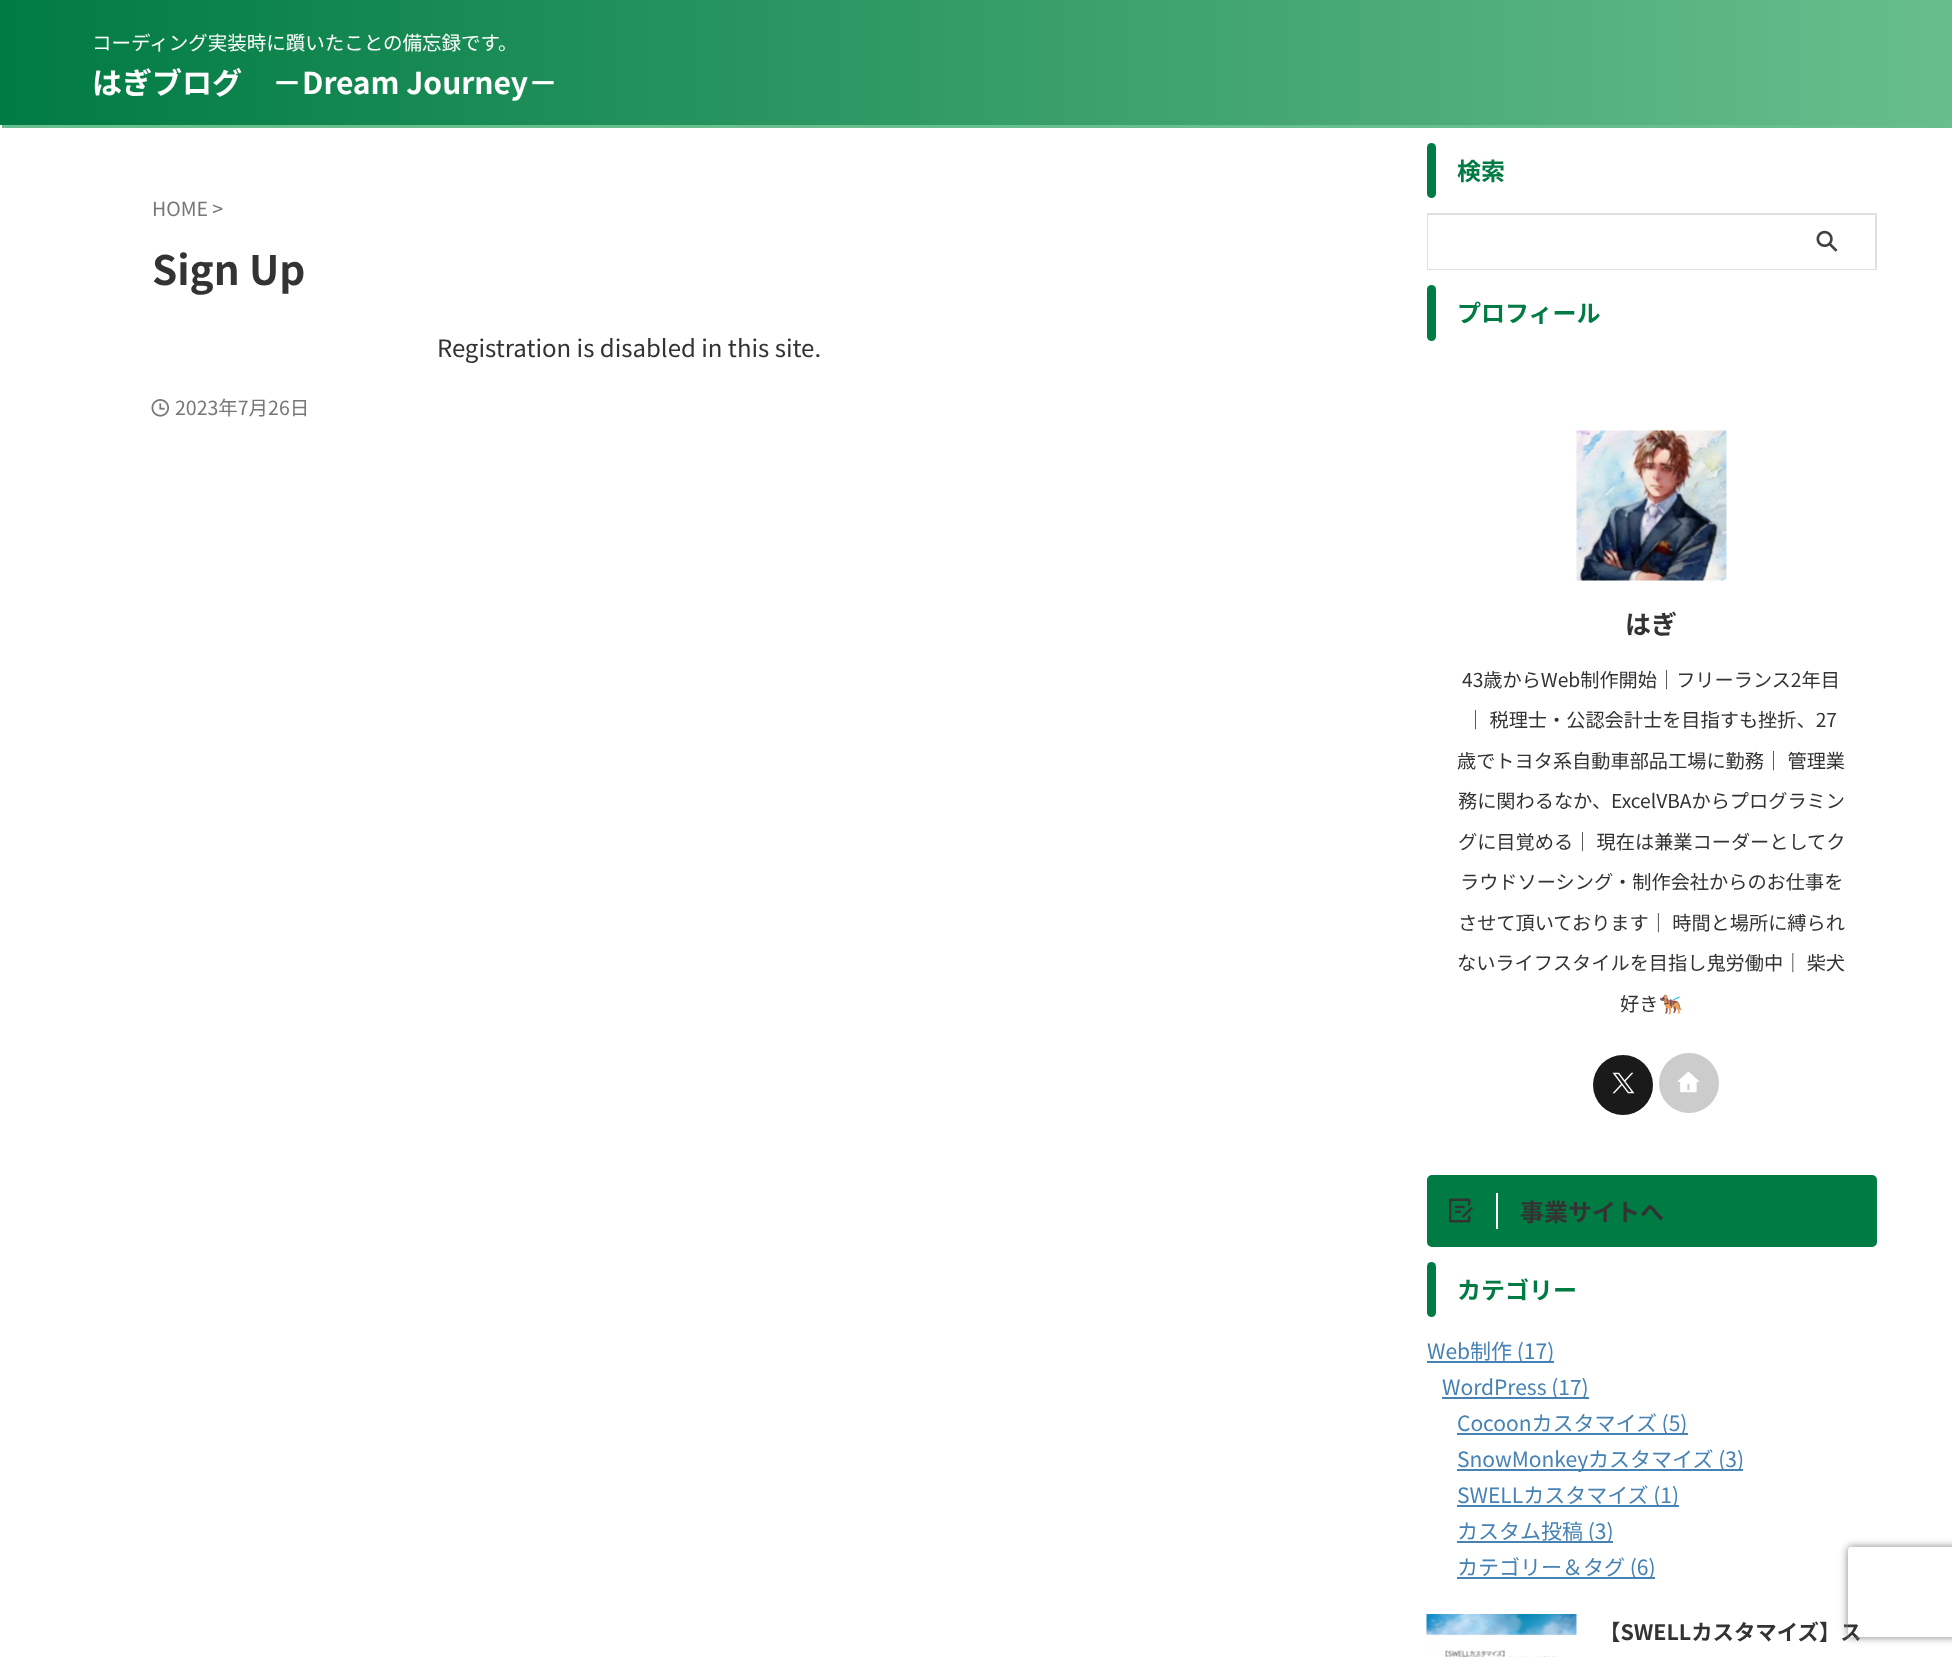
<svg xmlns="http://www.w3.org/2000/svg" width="1952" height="1657">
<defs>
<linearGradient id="g1" gradientUnits="userSpaceOnUse" x1="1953" y1="62" x2="0" y2="62"><stop offset="0" stop-color="#68be8d"/><stop offset="1" stop-color="#007b43"/></linearGradient>
<clipPath id="clip1"><path d="M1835 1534h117v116h-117zm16 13h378c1.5 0 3 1.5 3 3v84c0 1.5-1.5 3-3 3h-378c-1.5 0-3-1.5-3-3v-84c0-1.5 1.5-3 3-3z" clip-rule="evenodd"/></clipPath>
</defs>
<rect width="100%" height="100%" fill="#fff"/>
<rect width="1952" height="125" fill="url(#g1)"/>
<text x="92" y="50" style="font-family:Noto Sans JP;font-size:19.5px;fill:#fff">コーディング実装時に躓いたことの備忘録です。</text>
<text x="92" y="94" style="font-family:Noto Sans JP;font-size:30px;font-weight:bold;fill:#fff">はぎブログ　－Dream Journey－</text>
<rect x="2" y="125" width="1950" height="3" fill="#68be8d"/>
<text x="152" y="216" style="font-family:Noto Sans JP;font-size:19.5px;fill:#777">HOME &gt;</text>
<text x="152" y="285" style="font-family:Noto Sans JP;font-size:40.5px;font-weight:bold;fill:#333">Sign Up</text>
<text x="437" y="357" style="font-family:Noto Sans JP;font-size:24px;fill:#333">Registration is disabled in this site.</text>
<image x="151" y="399" width="18" height="18" href="media/1.png"/>
<text x="175" y="415" style="font-family:Noto Sans JP;font-size:19.5px;fill:#777">2023年7月26日</text>
<rect x="1427" y="143" width="9" height="55" rx="4.5" fill="#007b43"/>
<text x="1457" y="180" style="font-family:Noto Sans JP;font-size:24px;font-weight:bold;fill:#007b43">検索</text>
<rect x="1428" y="214" width="448" height="55" fill="none" stroke="#e0e0e0" stroke-width="2"/>
<rect x="1428" y="215" width="351" height="54" fill="#fff"/>
<rect x="1779" y="268" width="96" height="1" fill="#fff"/>
<image x="1816" y="230" width="22" height="22" href="media/2.png"/>
<rect x="1427" y="285" width="9" height="56" rx="4.5" fill="#007b43"/>
<text x="1457" y="322" style="font-family:Noto Sans JP;font-size:24px;font-weight:bold;fill:#007b43">プロフィール</text>
<image x="1576" y="430" width="151" height="151" href="media/3.png"/>
<text x="1625" y="634" style="font-family:Noto Sans JP;font-size:26px;font-weight:bold;fill:#333">はぎ</text>
<text x="1462" y="687" style="font-family:Noto Sans JP;font-size:19.2px;fill:#333">43歳からWeb制作開始｜フリーランス2年目</text>
<text x="1466" y="727" style="font-family:Noto Sans JP;font-size:19.2px;fill:#333">｜ 税理士・公認会計士を目指すも挫折、27</text>
<text x="1457" y="768" style="font-family:Noto Sans JP;font-size:19.2px;fill:#333">歳でトヨタ系自動車部品工場に勤務｜ 管理業</text>
<text x="1458" y="808" style="font-family:Noto Sans JP;font-size:19.2px;fill:#333">務に関わるなか、ExcelVBAからプログラミン</text>
<text x="1458" y="849" style="font-family:Noto Sans JP;font-size:19.2px;fill:#333">グに目覚める｜ 現在は兼業コーダーとしてク</text>
<text x="1460" y="889" style="font-family:Noto Sans JP;font-size:19.2px;fill:#333">ラウドソーシング・制作会社からのお仕事を</text>
<text x="1458" y="930" style="font-family:Noto Sans JP;font-size:19.2px;fill:#333">させて頂いております｜ 時間と場所に縛られ</text>
<text x="1457" y="970" style="font-family:Noto Sans JP;font-size:19.2px;fill:#333">ないライフスタイルを目指し鬼労働中｜ 柴犬</text>
<text x="1620" y="1011" style="font-family:Noto Sans JP;font-size:19.2px;fill:#333">好き</text>
<text x="1659" y="1011" style="font-family:Noto Color Emoji;font-size:19.2px;fill:#333">🐕‍🦺</text>
<circle cx="1623" cy="1085" r="30" fill="#1a1a1a"/>
<image x="1612" y="1072" width="23" height="22" href="media/4.png"/>
<circle cx="1689" cy="1083" r="30" fill="#ccc"/>
<image x="1677" y="1071" width="23" height="22" href="media/5.png"/>
<rect x="1427" y="1175" width="450" height="72" rx="5" fill="#007b43"/>
<rect x="1496" y="1193" width="2" height="36" fill="#fff"/>
<image x="1449" y="1198" width="24" height="25" href="media/6.png"/>
<text x="1520" y="1221" style="font-family:Noto Sans JP;font-size:24px;font-weight:bold;fill:#333">事業サイトへ</text>
<rect x="1427" y="1262" width="9" height="55" rx="4.5" fill="#007b43"/>
<text x="1457" y="1299" style="font-family:Noto Sans JP;font-size:24px;font-weight:bold;fill:#007b43">カテゴリー</text>
<rect x="1427" y="1361" width="127" height="2" fill="#4682b4"/>
<text x="1427" y="1359" style="font-family:Noto Sans JP;font-size:21px;fill:#4682b4">Web制作 (17)</text>
<rect x="1442" y="1397" width="147" height="2" fill="#4682b4"/>
<text x="1442" y="1395" style="font-family:Noto Sans JP;font-size:21px;fill:#4682b4">WordPress (17)</text>
<rect x="1457" y="1433" width="231" height="2" fill="#4682b4"/>
<text x="1457" y="1431" style="font-family:Noto Sans JP;font-size:21px;fill:#4682b4">Cocoonカスタマイズ (5)</text>
<rect x="1457" y="1469" width="286" height="2" fill="#4682b4"/>
<text x="1457" y="1467" style="font-family:Noto Sans JP;font-size:21px;fill:#4682b4">SnowMonkeyカスタマイズ (3)</text>
<rect x="1457" y="1505" width="222" height="2" fill="#4682b4"/>
<text x="1457" y="1503" style="font-family:Noto Sans JP;font-size:21px;fill:#4682b4">SWELLカスタマイズ (1)</text>
<rect x="1457" y="1541" width="156" height="2" fill="#4682b4"/>
<text x="1457" y="1539" style="font-family:Noto Sans JP;font-size:21px;fill:#4682b4">カスタム投稿 (3)</text>
<rect x="1457" y="1577" width="198" height="2" fill="#4682b4"/>
<text x="1457" y="1575" style="font-family:Noto Sans JP;font-size:21px;fill:#4682b4">カテゴリー＆タグ (6)</text>
<image x="1426" y="1614" width="151" height="43" href="media/7.png"/>
<text x="1599" y="1640" style="font-family:Noto Sans JP;font-size:21.4px;font-weight:bold;fill:#333">【SWELLカスタマイズ】ス</text>
<g clip-path="url(#clip1)">
<rect x="1848" y="1547" width="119" height="90" rx="3" fill="#808080" filter="blur(4px)"/>
</g>
</svg>
